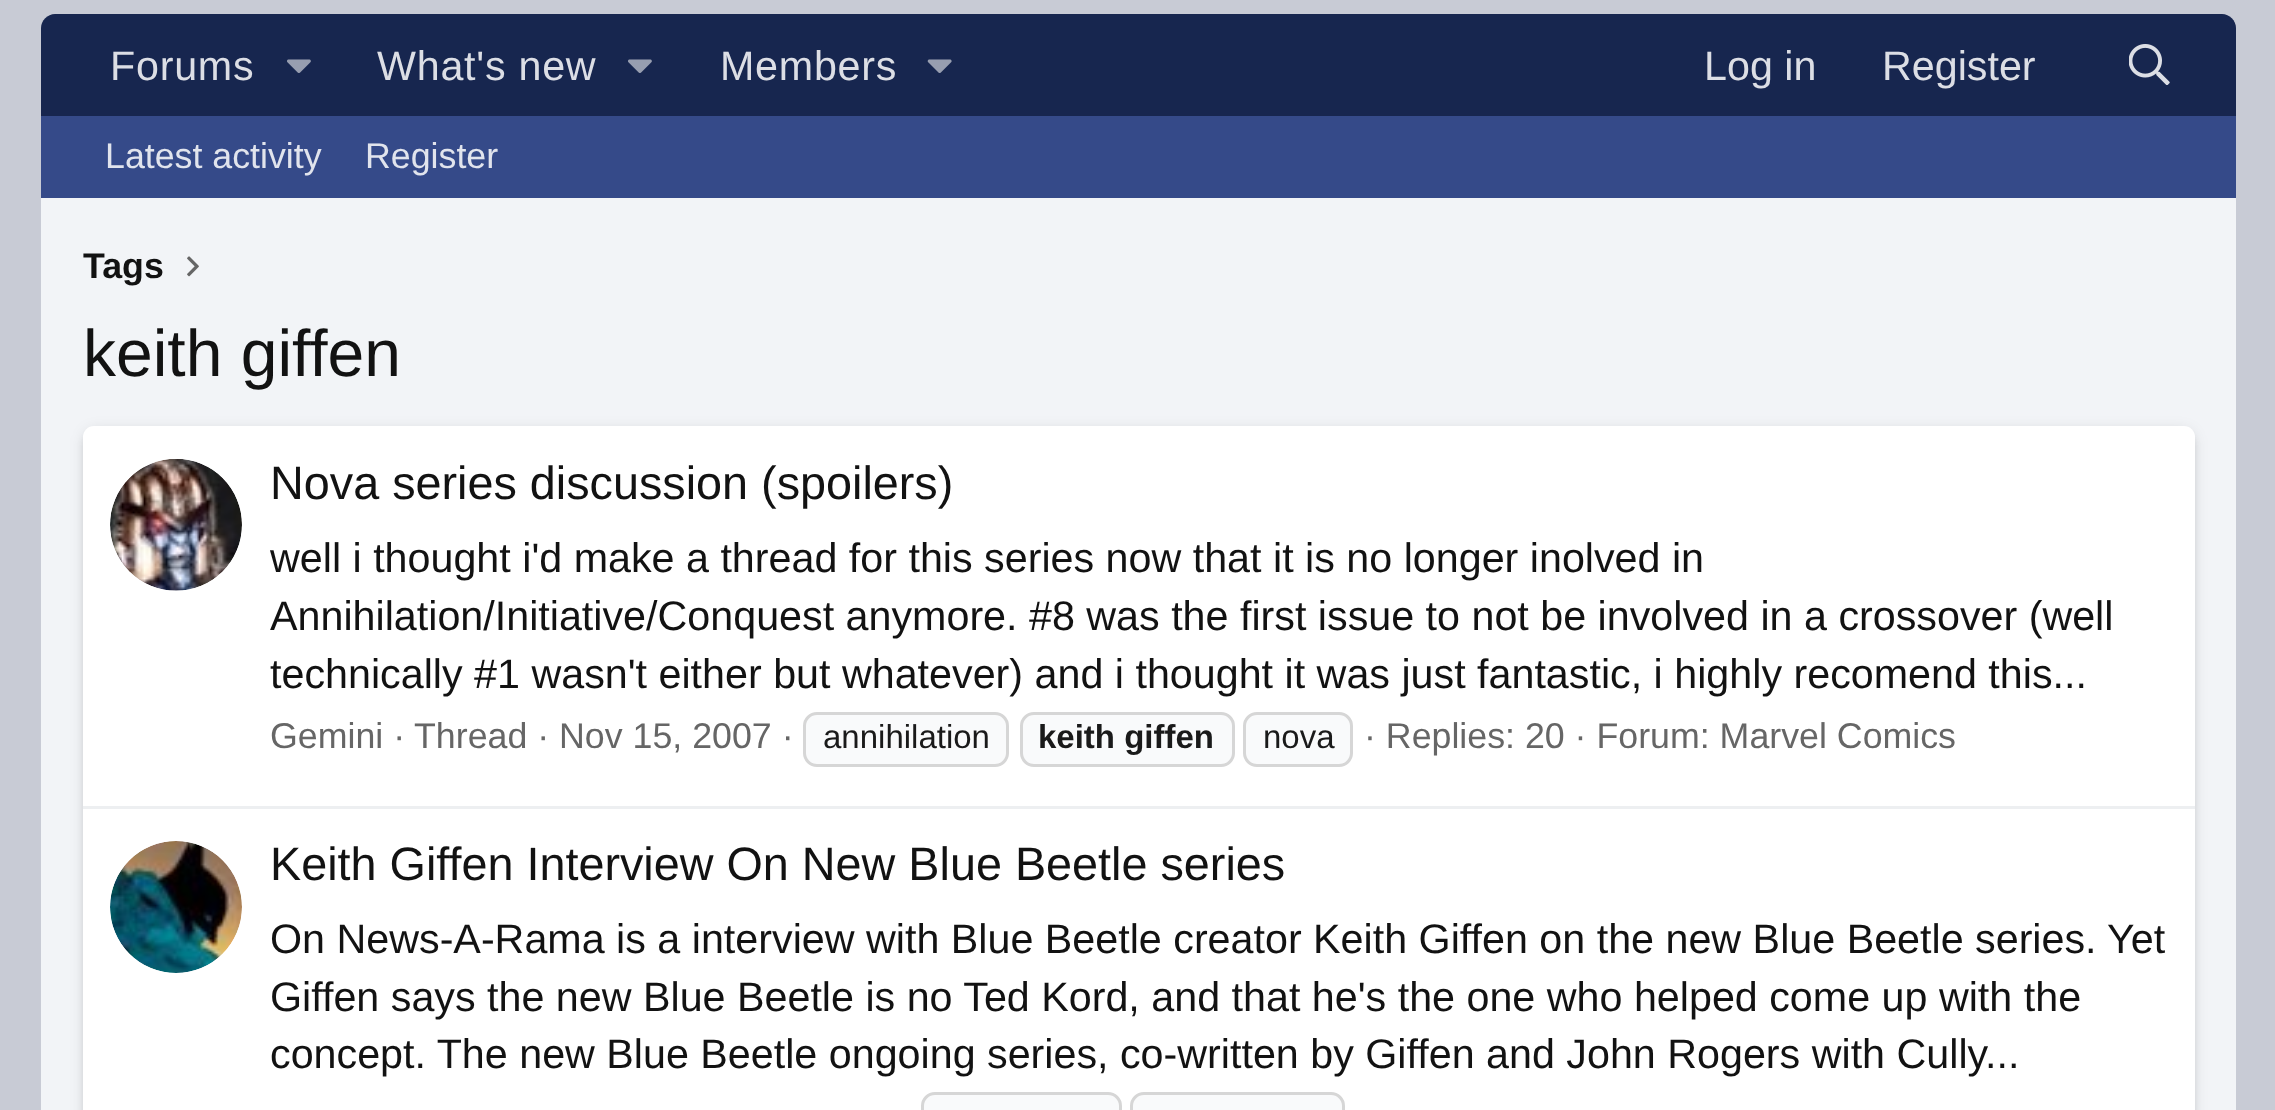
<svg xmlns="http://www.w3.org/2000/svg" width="2275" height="1110">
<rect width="100%" height="100%" fill="#c8cbd5"/>
<path d="M55 14h2167c7.5 0 14 6.5 14 14v88h-2195v-88c0-7.5 6.5-14 14-14z" fill="#17264f"/>
<text x="110" y="80" style="font-family:Liberation Sans;font-size:41.25px;letter-spacing:0.75px;fill:#dcdee5">Forums</text>
<image x="287" y="59" width="24" height="14" href="media/1.png"/>
<text x="377" y="80" style="font-family:Liberation Sans;font-size:41.25px;letter-spacing:0.75px;fill:#dcdee5">What's new</text>
<image x="628" y="59" width="24" height="14" href="media/1.png"/>
<text x="720" y="80" style="font-family:Liberation Sans;font-size:41.25px;letter-spacing:0.75px;fill:#dcdee5">Members</text>
<image x="927" y="59" width="25" height="14" href="media/2.png"/>
<text x="1704" y="80" style="font-family:Liberation Sans;font-size:41.25px;fill:#dcdee5">Log in</text>
<text x="1882" y="80" style="font-family:Liberation Sans;font-size:41.25px;fill:#dcdee5">Register</text>
<image x="2129" y="44" width="41" height="41" href="media/3.png"/>
<rect x="41" y="116" width="2195" height="82" fill="#354a89"/>
<text x="105" y="168" style="font-family:Liberation Sans;font-size:35.75px;fill:#e1e4ed">Latest activity</text>
<text x="365" y="168" style="font-family:Liberation Sans;font-size:35.75px;fill:#e1e4ed">Register</text>
<rect x="41" y="198" width="2195" height="912" fill="#f2f4f7"/>
<text x="83" y="278" style="font-family:Liberation Sans;font-size:35.75px;font-weight:bold;fill:#121212">Tags</text>
<image x="187" y="256" width="12" height="21" href="media/4.png"/>
<text x="83" y="376" style="font-family:Liberation Sans;font-size:66px;fill:#121212">keith giffen</text>
<rect x="83" y="429" width="2112" height="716" rx="14" fill="#0000001a" filter="blur(7px)"/>
<rect x="83" y="432" width="2112" height="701" rx="14" fill="#00000012" filter="blur(3px)"/>
<rect x="83" y="426" width="2112" height="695" rx="11" fill="#fff"/>
<image x="110" y="459" width="132" height="132" href="media/5.png"/>
<text x="270" y="499" style="font-family:Liberation Sans;font-size:46.75px;fill:#121212">Nova series discussion (spoilers)</text>
<text x="270" y="572" style="font-family:Liberation Sans;font-size:41.25px;fill:#121212">well i thought i'd make a thread for this series now that it is no longer inolved in</text>
<text x="270" y="630" style="font-family:Liberation Sans;font-size:41.25px;fill:#121212">Annihilation/Initiative/Conquest anymore. #8 was the first issue to not be involved in a crossover (well</text>
<text x="270" y="688" style="font-family:Liberation Sans;font-size:41.25px;fill:#121212">technically #1 wasn't either but whatever) and i thought it was just fantastic, i highly recomend this...</text>
<text x="270" y="748" style="font-family:Liberation Sans;font-size:35.75px;fill:#666">Gemini ·</text>
<text x="414" y="748" style="font-family:Liberation Sans;font-size:35.75px;fill:#666">Thread · Nov 15, 2007 ·</text>
<rect x="804.5" y="713.5" width="203" height="52" rx="12.5" fill="#f9fafb" stroke="#d6d6d6" stroke-width="3"/>
<text x="823" y="748" style="font-family:Liberation Sans;font-size:33px;fill:#1a1a1a">annihilation</text>
<rect x="1021.5" y="713.5" width="212" height="52" rx="12.5" fill="#f9fafb" stroke="#d6d6d6" stroke-width="3"/>
<text x="1038" y="748" style="font-family:Liberation Sans;font-size:33px;font-weight:bold;fill:#1a1a1a">keith giffen</text>
<rect x="1244.5" y="713.5" width="107" height="52" rx="12.5" fill="#f9fafb" stroke="#d6d6d6" stroke-width="3"/>
<text x="1263" y="748" style="font-family:Liberation Sans;font-size:33px;fill:#1a1a1a">nova</text>
<text x="1364" y="748" style="font-family:Liberation Sans;font-size:35.75px;fill:#666">· Replies: 20 · Forum: Marvel Comics</text>
<rect x="83" y="806" width="2112" height="3" fill="#edeff1"/>
<image x="110" y="841" width="132" height="132" href="media/6.png"/>
<text x="270" y="880" style="font-family:Liberation Sans;font-size:46.75px;fill:#121212">Keith Giffen Interview On New Blue Beetle series</text>
<text x="270" y="953" style="font-family:Liberation Sans;font-size:41.25px;fill:#121212">On News-A-Rama is a interview with Blue Beetle creator Keith Giffen on the new Blue Beetle series.</text>
<text x="2107" y="953" style="font-family:Liberation Sans;font-size:41.25px;fill:#121212">Yet</text>
<text x="270" y="1011" style="font-family:Liberation Sans;font-size:41.25px;fill:#121212">Giffen says the new Blue Beetle is no Ted Kord, and that he's the one who helped come up with the</text>
<text x="270" y="1068" style="font-family:Liberation Sans;font-size:41.25px;fill:#121212">concept. The new Blue Beetle ongoing series, co-written by Giffen and John Rogers with Cully...</text>
<rect x="922.5" y="1093.5" width="198" height="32" rx="12.5" fill="#f9fafb" stroke="#d6d6d6" stroke-width="3"/>
<rect x="1131.5" y="1093.5" width="212" height="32" rx="12.5" fill="#f9fafb" stroke="#d6d6d6" stroke-width="3"/>
</svg>
